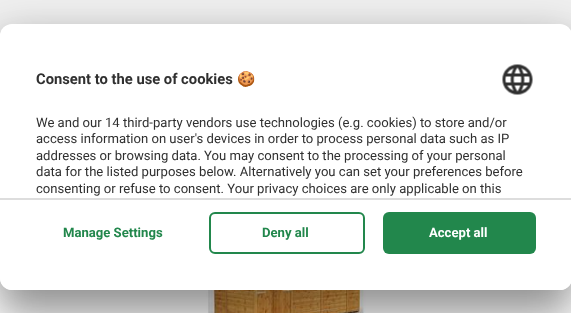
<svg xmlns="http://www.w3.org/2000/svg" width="571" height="313">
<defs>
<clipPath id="clip1"><rect y="24" width="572" height="266" rx="12"/></clipPath>
<clipPath id="clip2"><path d="M12 24h548c6.5 0 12 5.5 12 12v162h-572v-162c0-6.5 5.5-12 12-12z"/></clipPath>
</defs>
<rect width="100%" height="100%" fill="#efefef"/>
<rect y="278" width="571" height="35" fill="#fff"/>
<image x="199" y="290" width="167" height="23" href="media/2.png"/>
<rect y="54" width="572" height="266" rx="12" fill="#0000004d" filter="blur(21px)"/>
<rect y="32" width="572" height="265" rx="12" fill="#00000038" filter="blur(19.5px)"/>
<rect y="24" width="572" height="266" rx="12" fill="#fff"/>
<g clip-path="url(#clip1)">
<g clip-path="url(#clip2)">
<rect y="26" width="571" height="172" fill="#fff"/>
</g>
</g>
<text x="36" y="84" style="font-family:Roboto;font-size:14.75px;font-weight:bold;fill:#303030">Consent to the use of cookies</text>
<text x="237" y="84" style="font-family:Noto Color Emoji;font-size:14.75px;font-weight:bold;fill:#303030">🍪</text>
<image x="502" y="64" width="31" height="31" href="media/1.png"/>
<text x="36" y="127" style="font-family:Roboto;font-size:13.1px;fill:#303030">We and our 14 third-party vendors use technologies (e.g. cookies) to store and/or</text>
<text x="36" y="143" style="font-family:Roboto;font-size:13.1px;fill:#303030">access information on user's devices in order to process personal data such as IP</text>
<text x="36" y="160" style="font-family:Roboto;font-size:13.1px;fill:#303030">addresses or browsing data. You may consent to the processing of your personal</text>
<text x="36" y="176" style="font-family:Roboto;font-size:13.1px;fill:#303030">data for the listed purposes below. Alternatively you can set your preferences before</text>
<text x="36" y="193" style="font-family:Roboto;font-size:13.1px;fill:#303030">consenting or refuse to consent. Your privacy choices are only applicable on this</text>
<path d="M0 198h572v80c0 6.5-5.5 12-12 12h-548c-6.5 0-12-5.5-12-12z" fill="#fff"/>
<rect y="198" width="571" height="2" fill="#ddd"/>
<text x="63" y="237" style="font-family:Roboto;font-size:13.1px;font-weight:bold;fill:#22874c">Manage Settings</text>
<rect x="210" y="213" width="154" height="40" rx="5" fill="none" stroke="#22874c" stroke-width="2"/>
<text x="262" y="237" style="font-family:Roboto;font-size:13.1px;font-weight:bold;fill:#22874c">Deny all</text>
<rect x="383" y="212" width="153" height="42" rx="6" fill="#22874c"/>
<text x="429" y="237" style="font-family:Roboto;font-size:13.1px;font-weight:bold;fill:#fff">Accept all</text>
</svg>
